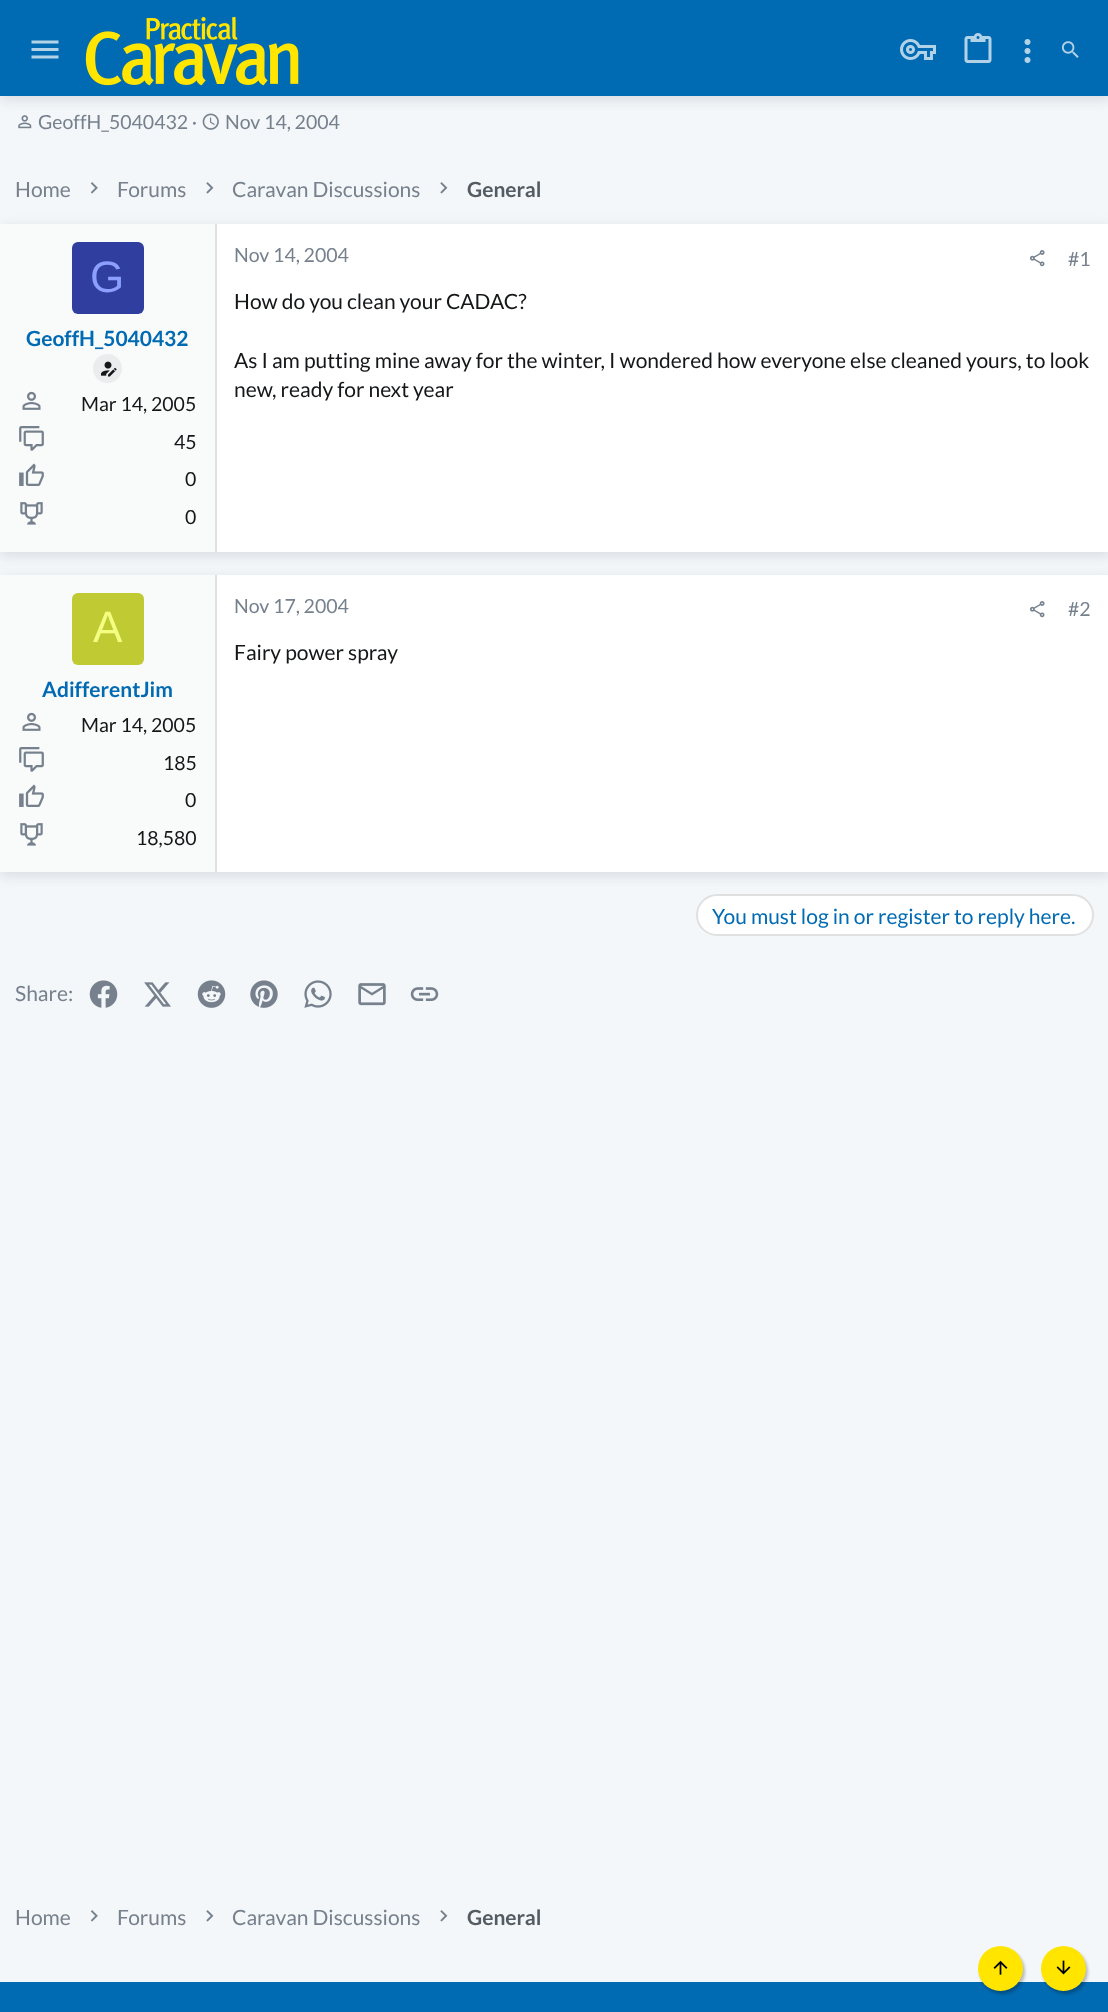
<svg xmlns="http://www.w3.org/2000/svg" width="1108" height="2012">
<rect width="100%" height="100%" fill="#f4f7f9"/>
<image x="202" y="113" width="17" height="17" href="media/8.png"/>
<rect x="3" width="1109" height="96" fill="#6b778014" filter="blur(6px)"/>
<image x="18" y="115" width="14" height="14" href="media/7.png"/>
<rect y="6" width="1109" height="96" fill="#6b77801f" filter="blur(6px)"/>
<rect width="1108" height="96" fill="#006ab2"/>
<image x="31" y="40" width="28" height="19" href="media/1.png"/>
<image x="85" y="16" width="214" height="70" href="media/2.png"/>
<image x="900" y="39" width="36" height="21" href="media/3.png"/>
<image x="964" y="33" width="28" height="30" href="media/4.png"/>
<image x="1024" y="39" width="7" height="24" href="media/5.png"/>
<image x="1061" y="41" width="18" height="17" href="media/6.png"/>
<text x="38" y="129" style="font-family:Lato;font-size:19.5px;fill:#76818d">GeoffH_5040432 ·</text>
<text x="225" y="129" style="font-family:Lato;font-size:19.5px;fill:#76818d">Nov 14, 2004</text>
<text x="15" y="197" style="font-family:Lato;font-size:21px;fill:#76818d">Home</text>
<image x="90" y="182" width="8" height="12" href="media/9.png"/>
<text x="117" y="197" style="font-family:Lato;font-size:21px;fill:#76818d">Forums</text>
<image x="206" y="182" width="8" height="12" href="media/10.png"/>
<text x="232" y="197" style="font-family:Lato;font-size:21px;fill:#76818d">Caravan Discussions</text>
<image x="440" y="182" width="8" height="12" href="media/10.png"/>
<text x="467" y="197" style="font-family:Lato;font-size:21px;font-weight:bold;fill:#535b63">General</text>
<rect x="3" y="224" width="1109" height="328" fill="#6b778014" filter="blur(6px)"/>
<rect y="230" width="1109" height="328" fill="#6b77801f" filter="blur(6px)"/>
<rect x="217" y="224" width="891" height="328" fill="#fff"/>
<rect y="224" width="215" height="328" fill="#f9fafa"/>
<rect x="215" y="224" width="2" height="328" fill="#e0e0e0"/>
<rect x="72" y="242" width="72" height="72" rx="6" fill="#303f9f"/>
<text x="90" y="292" style="font-family:Liberation Sans;font-size:44px;fill:#8c9eff">G</text>
<text x="26" y="346" style="font-family:Lato;font-size:21px;font-weight:bold;fill:#006ab2">GeoffH_5040432</text>
<circle cx="107.5" cy="368.5" r="14.5" fill="#ebecee"/>
<image x="101" y="361" width="16" height="16" href="media/11.png"/>
<image x="22" y="391" width="19" height="19" href="media/12.png"/>
<text x="81" y="411" style="font-family:Lato;font-size:19.5px;fill:#141618">Mar 14, 2005</text>
<image x="19" y="426" width="25" height="25" href="media/13.png"/>
<text x="174" y="449" style="font-family:Lato;font-size:19.5px;fill:#141618">45</text>
<image x="19" y="463" width="25" height="23" href="media/14.png"/>
<text x="185" y="486" style="font-family:Lato;font-size:19.5px;fill:#141618">0</text>
<image x="20" y="502" width="23" height="23" href="media/15.png"/>
<text x="185" y="524" style="font-family:Lato;font-size:19.5px;fill:#141618">0</text>
<text x="234" y="262" style="font-family:Lato;font-size:19.5px;fill:#76818d">Nov 14, 2004</text>
<image x="1030" y="250" width="15" height="17" href="media/16.png"/>
<text x="1068" y="266" style="font-family:Lato;font-size:19.5px;fill:#76818d">#1</text>
<text x="234" y="309" style="font-family:Lato;font-size:21px;fill:#141618">How do you clean your CADAC?</text>
<text x="234" y="368" style="font-family:Lato;font-size:21px;fill:#141618">As I am putting mine away for the winter, I wondered how everyone else cleaned yours, to look</text>
<text x="234" y="397" style="font-family:Lato;font-size:21px;fill:#141618">new, ready for next year</text>
<rect x="3" y="575" width="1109" height="297" fill="#6b778014" filter="blur(6px)"/>
<rect y="581" width="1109" height="297" fill="#6b77801f" filter="blur(6px)"/>
<rect x="217" y="575" width="891" height="297" fill="#fff"/>
<rect y="575" width="215" height="297" fill="#f9fafa"/>
<rect x="215" y="575" width="2" height="297" fill="#e0e0e0"/>
<rect x="72" y="593" width="72" height="72" rx="6" fill="#c0ca33"/>
<text x="93" y="642" style="font-family:Liberation Sans;font-size:44px;fill:#f4ff81">A</text>
<text x="42" y="697" style="font-family:Lato;font-size:21px;font-weight:bold;fill:#006ab2">AdifferentJim</text>
<image x="22" y="712" width="19" height="19" href="media/12.png"/>
<text x="81" y="732" style="font-family:Lato;font-size:19.5px;fill:#141618">Mar 14, 2005</text>
<image x="19" y="747" width="25" height="25" href="media/13.png"/>
<text x="163" y="770" style="font-family:Lato;font-size:19.5px;fill:#141618">185</text>
<image x="19" y="784" width="25" height="23" href="media/14.png"/>
<text x="185" y="807" style="font-family:Lato;font-size:19.5px;fill:#141618">0</text>
<image x="20" y="823" width="23" height="23" href="media/15.png"/>
<text x="136" y="845" style="font-family:Lato;font-size:19.5px;fill:#141618">18,580</text>
<text x="234" y="613" style="font-family:Lato;font-size:19.5px;fill:#76818d">Nov 17, 2004</text>
<image x="1030" y="601" width="15" height="17" href="media/16.png"/>
<text x="1068" y="616" style="font-family:Lato;font-size:19.5px;fill:#76818d">#2</text>
<text x="234" y="660" style="font-family:Lato;font-size:21px;fill:#141618">Fairy power spray</text>
<rect x="697" y="895" width="396" height="40" rx="20" fill="#fff" stroke="#e0e0e0" stroke-width="2"/>
<text x="712" y="924" style="font-family:Lato;font-size:21px;fill:#006ab2">You must log in or register to reply here.</text>
<text x="15" y="1001" style="font-family:Lato;font-size:21px;fill:#76818d">Share:</text>
<image x="89" y="980" width="29" height="28" href="media/17.png"/>
<image x="144" y="982" width="27" height="25" href="media/18.png"/>
<image x="197" y="980" width="29" height="28" href="media/19.png"/>
<image x="250" y="980" width="28" height="28" href="media/20.png"/>
<image x="304" y="980" width="28" height="28" href="media/21.png"/>
<image x="358" y="983" width="28" height="23" href="media/22.png"/>
<image x="410" y="987" width="29" height="14" href="media/23.png"/>
<text x="15" y="1925" style="font-family:Lato;font-size:21px;fill:#76818d">Home</text>
<image x="90" y="1910" width="8" height="12" href="media/9.png"/>
<text x="117" y="1925" style="font-family:Lato;font-size:21px;fill:#76818d">Forums</text>
<image x="206" y="1910" width="8" height="12" href="media/10.png"/>
<text x="232" y="1925" style="font-family:Lato;font-size:21px;fill:#76818d">Caravan Discussions</text>
<image x="440" y="1910" width="8" height="12" href="media/10.png"/>
<text x="467" y="1925" style="font-family:Lato;font-size:21px;font-weight:bold;fill:#535b63">General</text>
<rect y="1982" width="1108" height="30" fill="#006ab2"/>
<rect x="980" y="1949" width="45" height="45" rx="22.5" fill="#00000040" filter="blur(1.5px)"/>
<circle cx="1000.5" cy="1968.5" r="22.5" fill="#ffe500"/>
<image x="993" y="1960" width="15" height="15" href="media/24.png"/>
<rect x="1043" y="1949" width="45" height="45" rx="22.5" fill="#00000040" filter="blur(1.5px)"/>
<circle cx="1063.5" cy="1968.5" r="22.5" fill="#ffe500"/>
<image x="1056" y="1960" width="15" height="15" href="media/25.png"/>
</svg>
